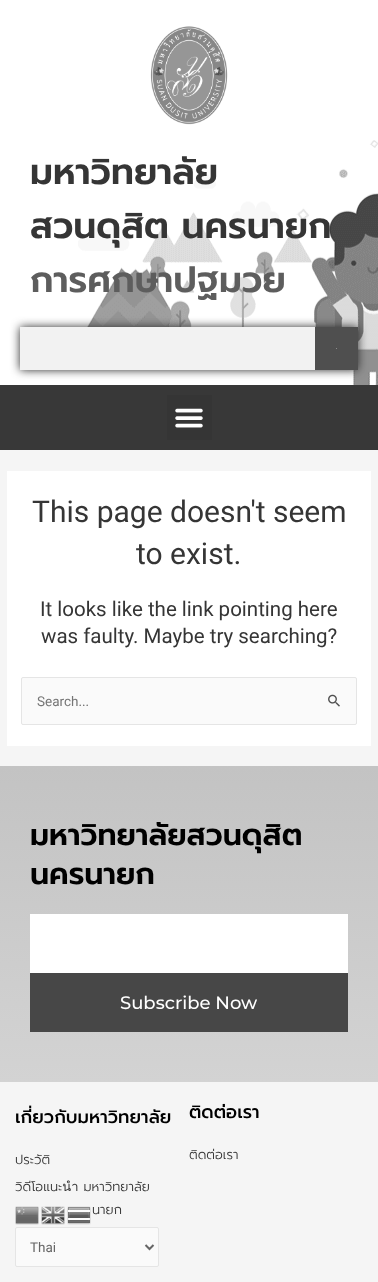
<svg xmlns="http://www.w3.org/2000/svg" width="378" height="1282">
<defs>
<linearGradient id="g1" gradientUnits="userSpaceOnUse" x1="189" y1="766" x2="189" y2="1082"><stop offset="0" stop-color="#c3c3c3"/><stop offset="1" stop-color="#d3d3d3"/></linearGradient>
</defs>
<rect width="100%" height="100%" fill="#f5f5f5"/>
<rect width="378" height="385" fill="#fff"/>
<image x="78" y="140" width="300" height="245" href="media/1.png"/>
<image x="150" y="26" width="78" height="99" href="media/2.png"/>
<text x="30" y="184" style="font-family:Prompt;font-size:36px;font-weight:600;fill:#353535">มหาวิทยาลัย</text>
<text x="30" y="238" style="font-family:Prompt;font-size:36px;font-weight:600;fill:#353535">สวนดุสิต นครนายก</text>
<text x="30" y="292" style="font-family:Prompt;font-size:36px;font-weight:600;fill:#5d5d5d">การศกษาปฐมวย</text>
<rect x="20" y="327" width="338" height="43" fill="#2a2a2a" filter="blur(5px)"/>
<rect x="20" y="327" width="295" height="43" fill="#f2f2f2"/>
<rect x="315" y="327" width="43" height="43" fill="#4f4f4f"/>
<rect x="336" y="348" width="1" height="1" fill="#8b8b8b"/>
<rect y="385" width="378" height="65" fill="#383838"/>
<rect x="167" y="395" width="45" height="45" fill="#353535"/>
<image x="175" y="408" width="28" height="20" href="media/3.png"/>
<rect x="7" y="471" width="364" height="275" fill="#fff"/>
<text x="32" y="522" style="font-family:Roboto;font-size:30px;fill:#353535">This page doesn't seem</text>
<text x="136" y="564" style="font-family:Roboto;font-size:30px;fill:#353535">to exist.</text>
<text x="40" y="616" style="font-family:Roboto;font-size:20.5px;fill:#353535">It looks like the link pointing here</text>
<text x="41" y="643" style="font-family:Roboto;font-size:20.5px;fill:#353535">was faulty. Maybe try searching?</text>
<rect x="21.5" y="677.5" width="335" height="47" rx="1.5" fill="#fafafa" stroke="#e5e5e5"/>
<text x="37" y="706" style="font-family:Roboto;font-size:13.5px;fill:#757575">Search...</text>
<image x="328" y="694" width="12" height="13" href="media/4.png"/>
<rect y="766" width="378" height="316" fill="url(#g1)"/>
<text x="30" y="845" style="font-family:Prompt;font-size:30px;font-weight:600;fill:#000">มหาวิทยาลัยสวนดุสิต</text>
<text x="30" y="884" style="font-family:Prompt;font-size:30px;font-weight:600;fill:#000">นครนายก</text>
<rect x="30" y="914" width="318" height="59" fill="#fff"/>
<rect x="30" y="973" width="318" height="59" fill="#474747"/>
<text x="120" y="1009" style="font-family:Montserrat;font-size:18px;font-weight:500;fill:#fff">Subscribe Now</text>
<text x="15" y="1123" style="font-family:Prompt;font-size:18px;font-weight:500;fill:#000">เกี่ยวกับมหาวิทยาลัย</text>
<text x="15" y="1164" style="font-family:Prompt;font-size:13px;font-weight:300;fill:#353535">ประวัติ</text>
<text x="15" y="1191" style="font-family:Prompt;font-size:13px;font-weight:300;fill:#353535">วิดีโอแนะนำ มหาวิทยาลัย</text>
<text x="92" y="1214" style="font-family:Prompt;font-size:13px;font-weight:300;fill:#353535">นายก</text>
<text x="189" y="1118" style="font-family:Prompt;font-size:18px;font-weight:500;fill:#000">ติดต่อเรา</text>
<text x="189" y="1159" style="font-family:Prompt;font-size:13px;font-weight:300;fill:#353535">ติดต่อเรา</text>
<image x="15" y="1206" width="24" height="19" href="media/5.png"/>
<image x="41" y="1206" width="24" height="19" href="media/6.png"/>
<image x="67" y="1206" width="24" height="19" href="media/7.png"/>
<rect x="15.5" y="1227.5" width="143" height="39" rx="1.5" fill="#fafafa" stroke="#e5e5e5"/>
<path d="M145.5 1245l4 4l4-4" fill="none" stroke="#666" stroke-width="2"/>
<text x="30" y="1252" style="font-family:Roboto;font-size:13.5px;fill:#666">Thai</text>
</svg>
